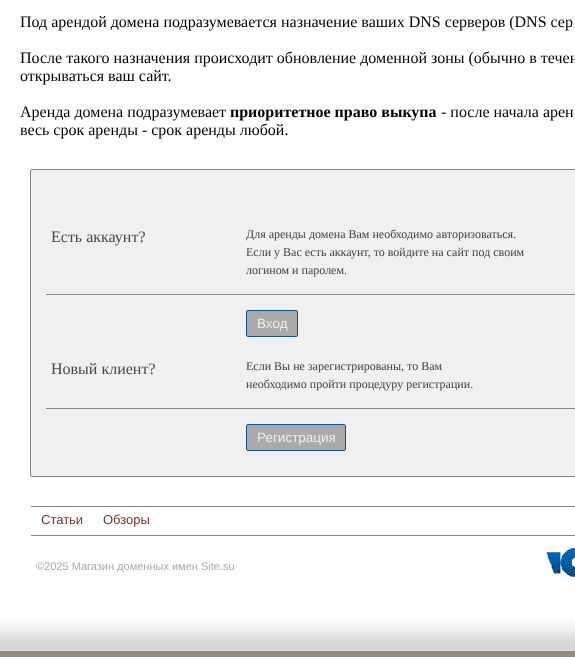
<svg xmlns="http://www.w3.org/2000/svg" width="575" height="657">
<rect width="100%" height="100%" fill="#968b79"/>
<rect width="575" height="619" fill="#fff"/>
<text x="20" y="27" style="font-family:Liberation Serif;font-size:16px;fill:#000">Под арендой домена подразумевается назначение ваших DNS серверов (DNS сер</text>
<text x="20" y="63" style="font-family:Liberation Serif;font-size:16px;fill:#000">После такого назначения происходит обновление доменной зоны (обычно в течен</text>
<text x="20" y="81" style="font-family:Liberation Serif;font-size:16px;fill:#000">открываться ваш сайт.</text>
<text x="20" y="117" style="font-family:Liberation Serif;font-size:16px;fill:#000">Аренда домена подразумевает</text>
<text x="230" y="117" style="font-family:Liberation Serif;font-size:16px;font-weight:bold;fill:#000">приоритетное право выкупа</text>
<text x="441" y="117" style="font-family:Liberation Serif;font-size:16px;fill:#000">- после начала арен</text>
<text x="20" y="135" style="font-family:Liberation Serif;font-size:16px;fill:#000">весь срок аренды - срок аренды любой.</text>
<rect x="30.5" y="169.5" width="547" height="307" rx="1.5" fill="#f0f0f0" stroke="#888"/>
<text x="51" y="242" style="font-family:Liberation Serif;font-size:16px;fill:#3e4853">Есть аккаунт?</text>
<text x="246" y="238" style="font-family:Liberation Serif;font-size:12px;fill:#444">Для аренды домена Вам необходимо авторизоваться.</text>
<text x="246" y="256" style="font-family:Liberation Serif;font-size:12px;fill:#444">Если у Вас есть аккаунт, то войдите на сайт под своим</text>
<text x="246" y="274" style="font-family:Liberation Serif;font-size:12px;fill:#444">логином и паролем.</text>
<rect x="46" y="294" width="529" height="1" fill="#888"/>
<rect x="246.5" y="310.5" width="51" height="26" rx="1.5" fill="#aaa" stroke="#0e5196"/>
<text x="257" y="328" style="font-family:Liberation Sans;font-size:13.5px;fill:#eee">Вход</text>
<text x="51" y="374" style="font-family:Liberation Serif;font-size:16px;fill:#3e4853">Новый клиент?</text>
<text x="246" y="370" style="font-family:Liberation Serif;font-size:12px;fill:#444">Если Вы не зарегистрированы, то Вам</text>
<text x="246" y="388" style="font-family:Liberation Serif;font-size:12px;fill:#444">необходимо пройти процедуру регистрации.</text>
<rect x="46" y="408" width="529" height="1" fill="#888"/>
<rect x="246.5" y="424.5" width="99" height="26" rx="1.5" fill="#aaa" stroke="#0e5196"/>
<text x="257" y="442" style="font-family:Liberation Sans;font-size:13.5px;fill:#eee">Регистрация</text>
<rect x="31" y="506" width="544" height="1" fill="#888"/>
<text x="41" y="524" style="font-family:Liberation Sans;font-size:13px;fill:#7d2d2a">Статьи</text>
<text x="103" y="524" style="font-family:Liberation Sans;font-size:13px;fill:#7d2d2a">Обзоры</text>
<rect x="31" y="535" width="544" height="1" fill="#888"/>
<text x="36" y="570" style="font-family:Liberation Sans;font-size:11px;fill:#aaa">©2025 Магазин доменных имен Site.su</text>
<image x="543" y="546" width="32" height="38" href="media/1.png"/>
<image x="0" y="619" width="575" height="32" href="media/2.png"/>
</svg>
